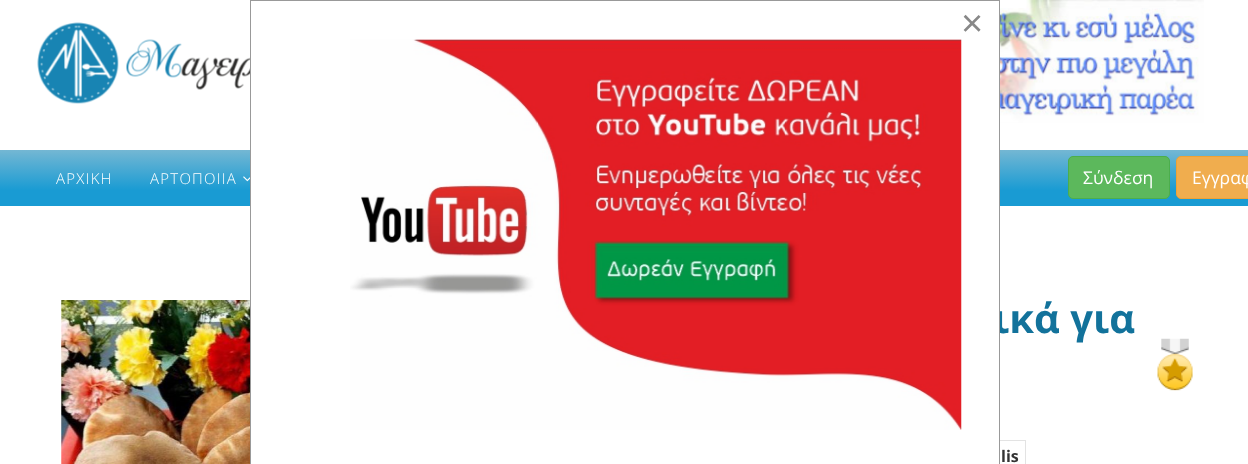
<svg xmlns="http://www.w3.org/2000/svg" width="1248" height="464">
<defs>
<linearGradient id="g1" gradientUnits="userSpaceOnUse" x1="624" y1="150" x2="624" y2="206"><stop offset="0" stop-color="#74b7d3"/><stop offset="0.72" stop-color="#199bd3"/></linearGradient>
</defs>
<rect width="100%" height="100%" fill="#fff"/>
<rect y="150" width="1248" height="56" fill="url(#g1)"/>
<text x="993" y="333" style="font-family:Open Sans;font-size:40px;font-weight:bold;fill:#12729b">ικά για</text>
<rect x="726.5" y="440.5" width="299" height="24" fill="none" stroke="#e3e3e3"/>
<rect x="251" y="150" width="748" height="314" fill="#fff"/>
<rect x="250.5" y="0.5" width="749" height="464" fill="none" stroke="#999"/>
<text x="961" y="36" style="font-family:Liberation Sans;font-size:38px;fill:#888">×</text>
<image x="350" y="39" width="612" height="391" href="media/1.png"/>
<image x="37" y="22" width="213" height="82" href="media/2.png"/>
<image x="1000" y="0" width="204" height="124" href="media/3.png"/>
<text x="56" y="184" style="font-family:Open Sans;font-size:15px;font-weight:300;letter-spacing:1.25px;fill:#fff">ΑΡΧΙΚΗ</text>
<text x="150" y="184" style="font-family:Open Sans;font-size:15px;font-weight:300;letter-spacing:1.25px;fill:#fff">ΑΡΤΟΠΟΙΙΑ</text>
<image x="243" y="176" width="7" height="6" href="media/4.png"/>
<rect x="1068.5" y="156.5" width="101" height="42" rx="4.5" fill="#5cb85c" stroke="#4cae4c"/>
<text x="1083" y="184" style="font-family:Open Sans;font-size:17.5px;fill:#fff">Σύνδεση</text>
<rect x="1176.5" y="156.5" width="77" height="42" rx="4.5" fill="#f0ad4e" stroke="#eea236"/>
<text x="1192" y="184" style="font-family:Open Sans;font-size:17.5px;fill:#fff">Εγγραφ</text>
<image x="61" y="300" width="189" height="164" href="media/5.png"/>
<image x="1157" y="338" width="36" height="53" href="media/6.png"/>
<text x="1001" y="462" style="font-family:Open Sans;font-size:16px;font-weight:bold;fill:#333">lis</text>
</svg>
